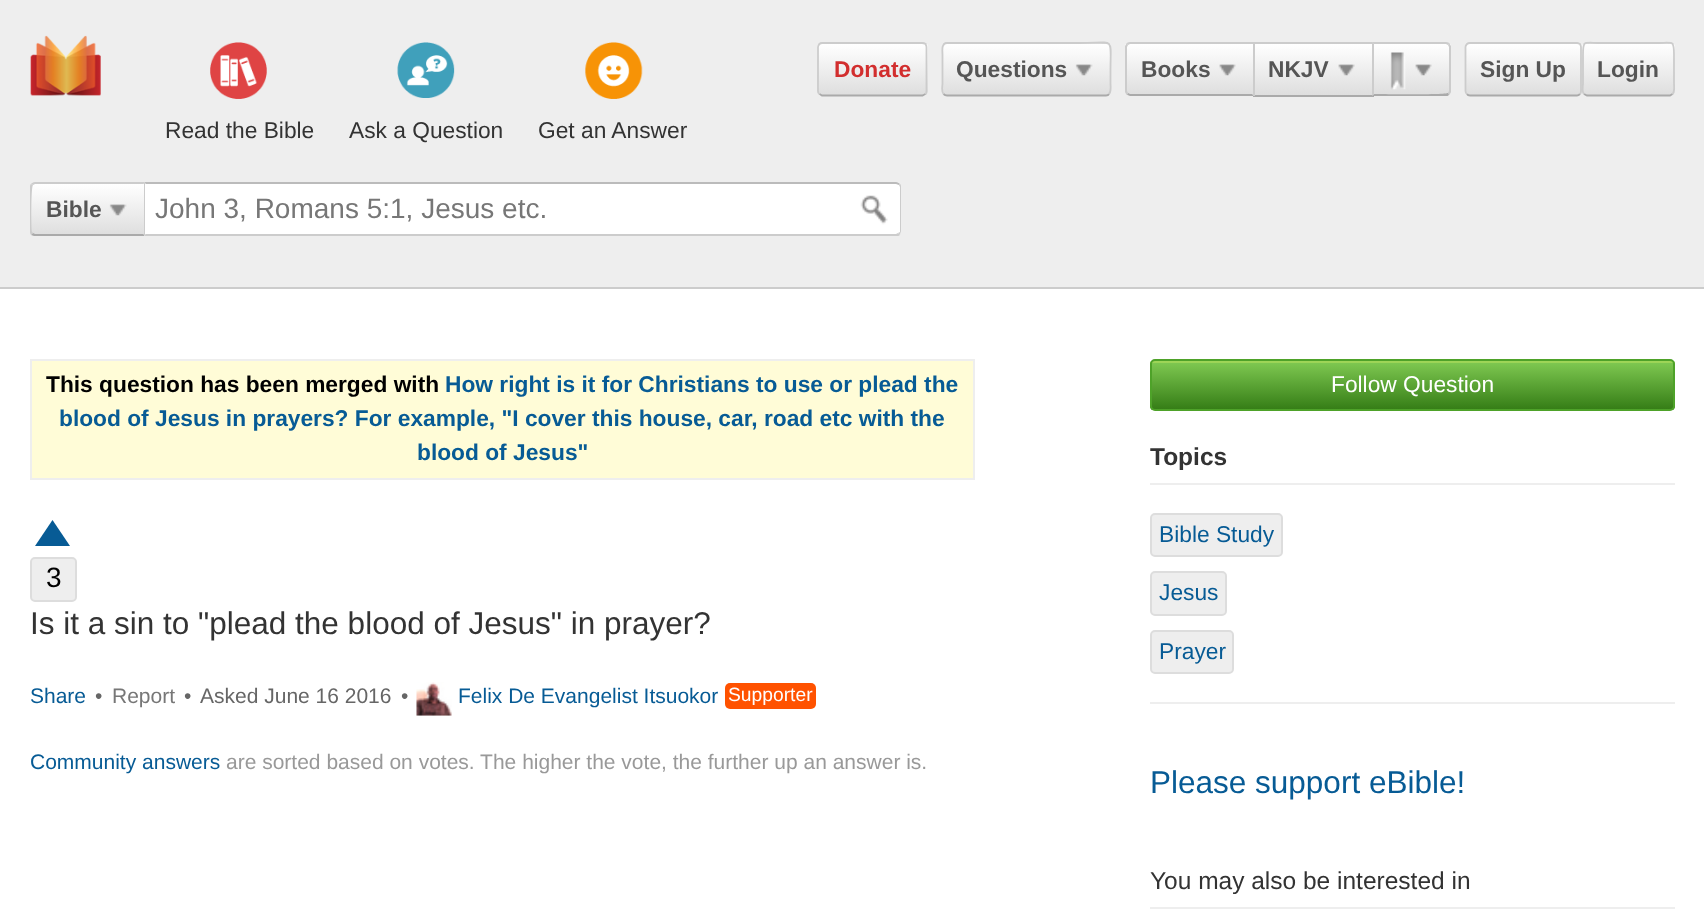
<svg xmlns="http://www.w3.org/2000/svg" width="1704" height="923">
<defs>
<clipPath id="clip1"><rect x="817" y="42" width="111" height="54" rx="5"/></clipPath>
<linearGradient id="g1" gradientUnits="userSpaceOnUse" x1="872" y1="-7" x2="872" y2="44"><stop offset="0" stop-color="#fff"/><stop offset="1" stop-color="#dedede"/></linearGradient>
<linearGradient id="g2" gradientUnits="userSpaceOnUse" x1="872" y1="44" x2="872" y2="95"><stop offset="0" stop-color="#fff"/><stop offset="1" stop-color="#dedede"/></linearGradient>
<linearGradient id="g3" gradientUnits="userSpaceOnUse" x1="872" y1="95" x2="872" y2="145"><stop offset="0" stop-color="#fff"/><stop offset="1" stop-color="#dedede"/></linearGradient>
<clipPath id="clip2"><rect x="942" y="42" width="169" height="54" rx="5"/></clipPath>
<linearGradient id="g4" gradientUnits="userSpaceOnUse" x1="1026" y1="-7" x2="1026" y2="44"><stop offset="0" stop-color="#fff"/><stop offset="1" stop-color="#dedede"/></linearGradient>
<linearGradient id="g5" gradientUnits="userSpaceOnUse" x1="1026" y1="44" x2="1026" y2="95"><stop offset="0" stop-color="#fff"/><stop offset="1" stop-color="#dedede"/></linearGradient>
<clipPath id="clip3"><path d="M1130 42h125v54h-125c-3 0-5-2-5-5v-44c0-3 2-5 5-5z"/></clipPath>
<linearGradient id="g6" gradientUnits="userSpaceOnUse" x1="1190" y1="-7" x2="1190" y2="44"><stop offset="0" stop-color="#fff"/><stop offset="1" stop-color="#dedede"/></linearGradient>
<linearGradient id="g7" gradientUnits="userSpaceOnUse" x1="1190" y1="44" x2="1190" y2="95"><stop offset="0" stop-color="#fff"/><stop offset="1" stop-color="#dedede"/></linearGradient>
<linearGradient id="g8" gradientUnits="userSpaceOnUse" x1="1190" y1="95" x2="1190" y2="145"><stop offset="0" stop-color="#fff"/><stop offset="1" stop-color="#dedede"/></linearGradient>
<linearGradient id="g9" gradientUnits="userSpaceOnUse" x1="1313" y1="44" x2="1313" y2="95"><stop offset="0" stop-color="#fff"/><stop offset="1" stop-color="#dedede"/></linearGradient>
<clipPath id="clip4"><path d="M1372 42h74c3 0 5 2 5 5v44c0 3-2 5-5 5h-74z"/></clipPath>
<linearGradient id="g10" gradientUnits="userSpaceOnUse" x1="1411" y1="-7" x2="1411" y2="44"><stop offset="0" stop-color="#fff"/><stop offset="1" stop-color="#dedede"/></linearGradient>
<linearGradient id="g11" gradientUnits="userSpaceOnUse" x1="1411" y1="44" x2="1411" y2="95"><stop offset="0" stop-color="#fff"/><stop offset="1" stop-color="#dedede"/></linearGradient>
<clipPath id="clip5"><rect x="1465" y="42" width="117" height="54" rx="5"/></clipPath>
<linearGradient id="g12" gradientUnits="userSpaceOnUse" x1="1523" y1="44" x2="1523" y2="95"><stop offset="0" stop-color="#fff"/><stop offset="1" stop-color="#dedede"/></linearGradient>
<clipPath id="clip6"><rect x="1582" y="42" width="93" height="54" rx="5"/></clipPath>
<linearGradient id="g13" gradientUnits="userSpaceOnUse" x1="1628" y1="-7" x2="1628" y2="44"><stop offset="0" stop-color="#fff"/><stop offset="1" stop-color="#dedede"/></linearGradient>
<linearGradient id="g14" gradientUnits="userSpaceOnUse" x1="1628" y1="44" x2="1628" y2="95"><stop offset="0" stop-color="#fff"/><stop offset="1" stop-color="#dedede"/></linearGradient>
<clipPath id="clip7"><path d="M35 182h110v54h-110c-3 0-5-2-5-5v-44c0-3 2-5 5-5z"/></clipPath>
<linearGradient id="g15" gradientUnits="userSpaceOnUse" x1="88" y1="184" x2="88" y2="235"><stop offset="0" stop-color="#fff"/><stop offset="1" stop-color="#dedede"/></linearGradient>
<clipPath id="clip8"><rect x="1150" y="359" width="525" height="52" rx="5"/></clipPath>
<linearGradient id="g16" gradientUnits="userSpaceOnUse" x1="1412" y1="410" x2="1412" y2="361"><stop offset="0.01" stop-color="#357d16"/><stop offset="0.96" stop-color="#7dc750"/><stop offset="0.97" stop-color="#9ed557"/></linearGradient>
</defs>
<rect width="100%" height="100%" fill="#fff"/>
<rect width="1704" height="287" fill="#eee"/>
<rect y="287" width="1704" height="2" fill="#ccc"/>
<image x="30" y="35" width="71" height="61" href="media/1.png"/>
<g clip-path="url(#clip1)">
<rect x="817" y="42" width="111" height="2" fill="url(#g1)"/>
<rect x="817" y="44" width="111" height="51" fill="url(#g2)"/>
<rect x="817" y="95" width="111" height="1" fill="url(#g3)"/>
</g>
<path d="M925.5 94l-3 1.5h-100.5l-2.5-1.5" fill="none" stroke="#aaa" stroke-width="1.8"/>
<path d="M819.5 94c-1-.5-1.5-2-1.5-3v-44c0-1 .5-2 1.5-3c.5-.5 2-1 3-1h99.5c1.5 0 2.5 .5 3.5 1c.5 1 1 2 1 3v44c0 1-.5 2.5-1 3" fill="none" stroke="#ccc" stroke-width="1.8"/>
<text x="834" y="77" style="font-family:Liberation Sans;font-size:22.75px;font-weight:bold;fill:#d22e2e">Donate</text>
<g clip-path="url(#clip2)">
<rect x="942" y="42" width="169" height="2" fill="url(#g4)"/>
<rect x="942" y="44" width="169" height="51" fill="url(#g5)"/>
</g>
<path d="M1109 94c-.5 1-2 1.5-3 1.5h-159c-1.5 0-2.5-.5-3.5-1.5" fill="none" stroke="#aaa" stroke-width="1.8"/>
<path d="M943.5 94c-2.5-2.5-1-8-1-10.5v-29c0-3-1.5-11.5 4.5-11.5h132.5c36 0 31-7 31 26v14.5c0 2.5 1 8-1.5 10.5" fill="none" stroke="#ccc" stroke-width="1.8"/>
<text x="956" y="77" style="font-family:Liberation Sans;font-size:22.75px;font-weight:bold;fill:#555">Questions</text>
<image x="1075" y="64" width="18" height="12" href="media/2.png"/>
<g clip-path="url(#clip3)">
<rect x="1125" y="42" width="5" height="2" fill="url(#g6)"/>
<rect x="1125" y="44" width="128" height="51" fill="url(#g7)"/>
<rect x="1125" y="95" width="5" height="1" fill="url(#g8)"/>
</g>
<path d="M1130 42l-3 1l1 2l2-1h123l2-2z" fill="#ccc"/>
<path d="M1254 96h-124l-3-1l1-2l2 1h122z" fill="#aaa"/>
<path d="M1125 46l2-3l1 2l-1 2v44l1 2l-1 2l-2-3z" fill="#ccc"/>
<text x="1141" y="77" style="font-family:Liberation Sans;font-size:22.75px;font-weight:bold;fill:#555">Books</text>
<image x="1219" y="64" width="17" height="12" href="media/3.png"/>
<rect x="1255" y="44" width="117" height="51" fill="url(#g9)"/>
<rect x="1253" y="42" width="121" height="2" fill="#ccc"/>
<rect x="1253" y="95" width="121" height="2" fill="#aaa"/>
<rect x="1253" y="42" width="2" height="54" fill="#ccc"/>
<text x="1268" y="77" style="font-family:Liberation Sans;font-size:22.75px;font-weight:bold;fill:#555">NKJV</text>
<image x="1338" y="64" width="17" height="12" href="media/4.png"/>
<g clip-path="url(#clip4)">
<rect x="1372" y="42" width="79" height="2" fill="url(#g10)"/>
<rect x="1373" y="44" width="78" height="51" fill="url(#g11)"/>
</g>
<path d="M1372 42l2 2h72l2 1l1-2l-3-1z" fill="#ccc"/>
<path d="M1451 92l-2 3l-1-2l1-2v-44l-1-2l1-2l2 3z" fill="#ccc"/>
<path d="M1449 95c-1 1-2 1-3 1h-74l2-2c8 0 71 1 74-1z" fill="#aaa"/>
<path d="M1374 44l-2-2v54l2-2z" fill="#ccc"/>
<image x="1390" y="52" width="16" height="38" href="media/5.png"/>
<image x="1415" y="64" width="17" height="12" href="media/4.png"/>
<g clip-path="url(#clip5)">
<rect x="1465" y="44" width="117" height="51" fill="url(#g12)"/>
</g>
<path d="M1580 94c-1 1-2 1.5-3 1.5h-107c-1 0-2.5-.5-3-1.5" fill="none" stroke="#aaa" stroke-width="1.8"/>
<path d="M1467 94c-1-.5-1.5-2-1.5-3v-44c0-1 .5-2 1.5-3c.5-.5 2-1 3-1h107c1 0 2 .5 3 1c.5 1 1 2 1 3v44c0 1-.5 2.5-1 3" fill="none" stroke="#ccc" stroke-width="1.8"/>
<text x="1480" y="77" style="font-family:Liberation Sans;font-size:22.75px;font-weight:bold;fill:#555">Sign Up</text>
<g clip-path="url(#clip6)">
<rect x="1582" y="42" width="93" height="2" fill="url(#g13)"/>
<rect x="1582" y="44" width="93" height="51" fill="url(#g14)"/>
</g>
<path d="M1672.5 94l-2.5 1.5h-83l-3-1.5" fill="none" stroke="#aaa" stroke-width="1.8"/>
<path d="M1584 94c-2.5-2.5-1-8-1-10.5v-29c0-15 1-11.5 18-11.5h55c17 0 18-3.5 18 11.5v29c0 2.5 1 8-1.5 10.5" fill="none" stroke="#ccc" stroke-width="1.8"/>
<text x="1597" y="77" style="font-family:Liberation Sans;font-size:22.75px;font-weight:bold;fill:#555">Login</text>
<image x="210" y="42" width="57" height="57" href="media/6.png"/>
<text x="165" y="138" style="font-family:Liberation Sans;font-size:22.75px;fill:#333">Read the Bible</text>
<image x="397" y="42" width="58" height="56" href="media/7.png"/>
<text x="349" y="138" style="font-family:Liberation Sans;font-size:22.75px;fill:#333">Ask a Question</text>
<image x="585" y="42" width="58" height="57" href="media/8.png"/>
<text x="538" y="138" style="font-family:Liberation Sans;font-size:22.75px;fill:#333">Get an Answer</text>
<g clip-path="url(#clip7)">
<rect x="30" y="184" width="114" height="51" fill="url(#g15)"/>
</g>
<path d="M35 182c-2 0-3 1-4 2l2 1l2-1h108l2-2z" fill="#ccc"/>
<path d="M145 182v54l-2-2h1v-50h-1z" fill="#ccc"/>
<path d="M145 236l-2-2h-108l-2-1l-2 2l3 1z" fill="#aaa"/>
<path d="M31 184c-1 0-1 2-1 3v44c0 1 0 3 1 4l2-2l-1-1c-1-4-1-46 1-47z" fill="#ccc"/>
<text x="46" y="217" style="font-family:Liberation Sans;font-size:22.75px;font-weight:bold;fill:#555">Bible</text>
<image x="109" y="204" width="18" height="12" href="media/2.png"/>
<path d="M144 182h752c3 0 5 2 5 5v44c0 3-2 5-5 5h-752z" fill="#fff"/>
<path d="M144 182l2 2h750l3 1l1-1c-1-1-2-2-4-2z" fill="#bbb"/>
<path d="M900 184c1 0 1 2 1 3v44c0 1-1 3-1 4l-2-2l2-1v-45l-1-2z" fill="#ccc"/>
<path d="M900 235c-1 1-2 1-4 1h-752l2-2h750l2-1z" fill="#ccc"/>
<path d="M145 184h1l-2-2v54l2-2h-1z" fill="#ccc"/>
<text x="155" y="218" style="font-family:Liberation Sans;font-size:28px;fill:#777">John 3, Romans 5:1, Jesus etc.</text>
<image x="860" y="195" width="28" height="30" href="media/9.png"/>
<rect x="31" y="360" width="943" height="119" fill="#fffcd7" stroke="#eee" stroke-width="2"/>
<text x="46" y="392" style="font-family:Liberation Sans;font-size:22.75px;font-weight:bold;fill:#000">This question has been merged with</text>
<text x="445" y="392" style="font-family:Liberation Sans;font-size:22.75px;font-weight:bold;fill:#075b95">How right is it for Christians to use or plead the</text>
<text x="59" y="426" style="font-family:Liberation Sans;font-size:22.75px;font-weight:bold;fill:#075b95">blood of Jesus in prayers? For example, "I cover this house, car, road etc with the</text>
<text x="417" y="460" style="font-family:Liberation Sans;font-size:22.75px;font-weight:bold;fill:#075b95">blood of Jesus"</text>
<path d="M70 546h-35l17.5-26z" fill="#075b95"/>
<rect x="31" y="558" width="45" height="43" rx="4" fill="#eee" stroke="#ddd" stroke-width="2"/>
<text x="46" y="587" style="font-family:Liberation Sans;font-size:28px;fill:#000">3</text>
<text x="30" y="634" style="font-family:Liberation Sans;font-size:31.5px;fill:#333">Is it a sin to "plead the blood of Jesus" in prayer?</text>
<text x="30" y="703" style="font-family:Liberation Sans;font-size:21px;fill:#075b95">Share</text>
<text x="95" y="703" style="font-family:Liberation Sans;font-size:21px;fill:#666">•</text>
<text x="112" y="703" style="font-family:Liberation Sans;font-size:21px;fill:#777">Report</text>
<text x="184" y="703" style="font-family:Liberation Sans;font-size:21px;fill:#666">•</text>
<text x="200" y="703" style="font-family:Liberation Sans;font-size:21px;fill:#666">Asked June 16 2016</text>
<text x="401" y="703" style="font-family:Liberation Sans;font-size:21px;fill:#666">•</text>
<image x="416" y="682" width="36" height="34" href="media/10.png"/>
<text x="458" y="703" style="font-family:Liberation Sans;font-size:21px;fill:#075b95">Felix De Evangelist Itsuokor</text>
<rect x="725" y="683" width="91" height="26" rx="5" fill="#ff5200"/>
<text x="728" y="701" style="font-family:Liberation Sans;font-size:19.25px;fill:#fff">Supporter</text>
<text x="30" y="769" style="font-family:Liberation Sans;font-size:21px;fill:#075b95">Community answers</text>
<text x="226" y="769" style="font-family:Liberation Sans;font-size:21px;fill:#999">are sorted based on votes. The higher the vote, the further up an answer is.</text>
<g clip-path="url(#clip8)">
<rect x="1150" y="361" width="525" height="49" fill="url(#g16)"/>
</g>
<rect x="1151" y="360" width="523" height="50" rx="4" fill="none" stroke="#4ea229" stroke-width="2"/>
<text x="1331" y="392" style="font-family:Liberation Sans;font-size:22.75px;fill:#fff">Follow Question</text>
<text x="1150" y="465" style="font-family:Liberation Sans;font-size:24.5px;font-weight:bold;fill:#333">Topics</text>
<rect x="1150" y="483" width="525" height="2" fill="#eee"/>
<rect x="1151" y="514" width="131" height="42" rx="4" fill="#eee" stroke="#ddd" stroke-width="2"/>
<text x="1159" y="542" style="font-family:Liberation Sans;font-size:22.75px;fill:#075b95">Bible Study</text>
<rect x="1151" y="572" width="75" height="43" rx="4" fill="#eee" stroke="#ddd" stroke-width="2"/>
<text x="1159" y="600" style="font-family:Liberation Sans;font-size:22.75px;fill:#075b95">Jesus</text>
<rect x="1151" y="631" width="82" height="42" rx="4" fill="#eee" stroke="#ddd" stroke-width="2"/>
<text x="1159" y="659" style="font-family:Liberation Sans;font-size:22.75px;fill:#075b95">Prayer</text>
<rect x="1150" y="702" width="525" height="2" fill="#eee"/>
<text x="1150" y="793" style="font-family:Liberation Sans;font-size:31.5px;fill:#075b95">Please support eBible!</text>
<text x="1150" y="889" style="font-family:Liberation Sans;font-size:24.5px;fill:#333">You may also be interested in</text>
<rect x="1150" y="907" width="525" height="2" fill="#eee"/>
</svg>
